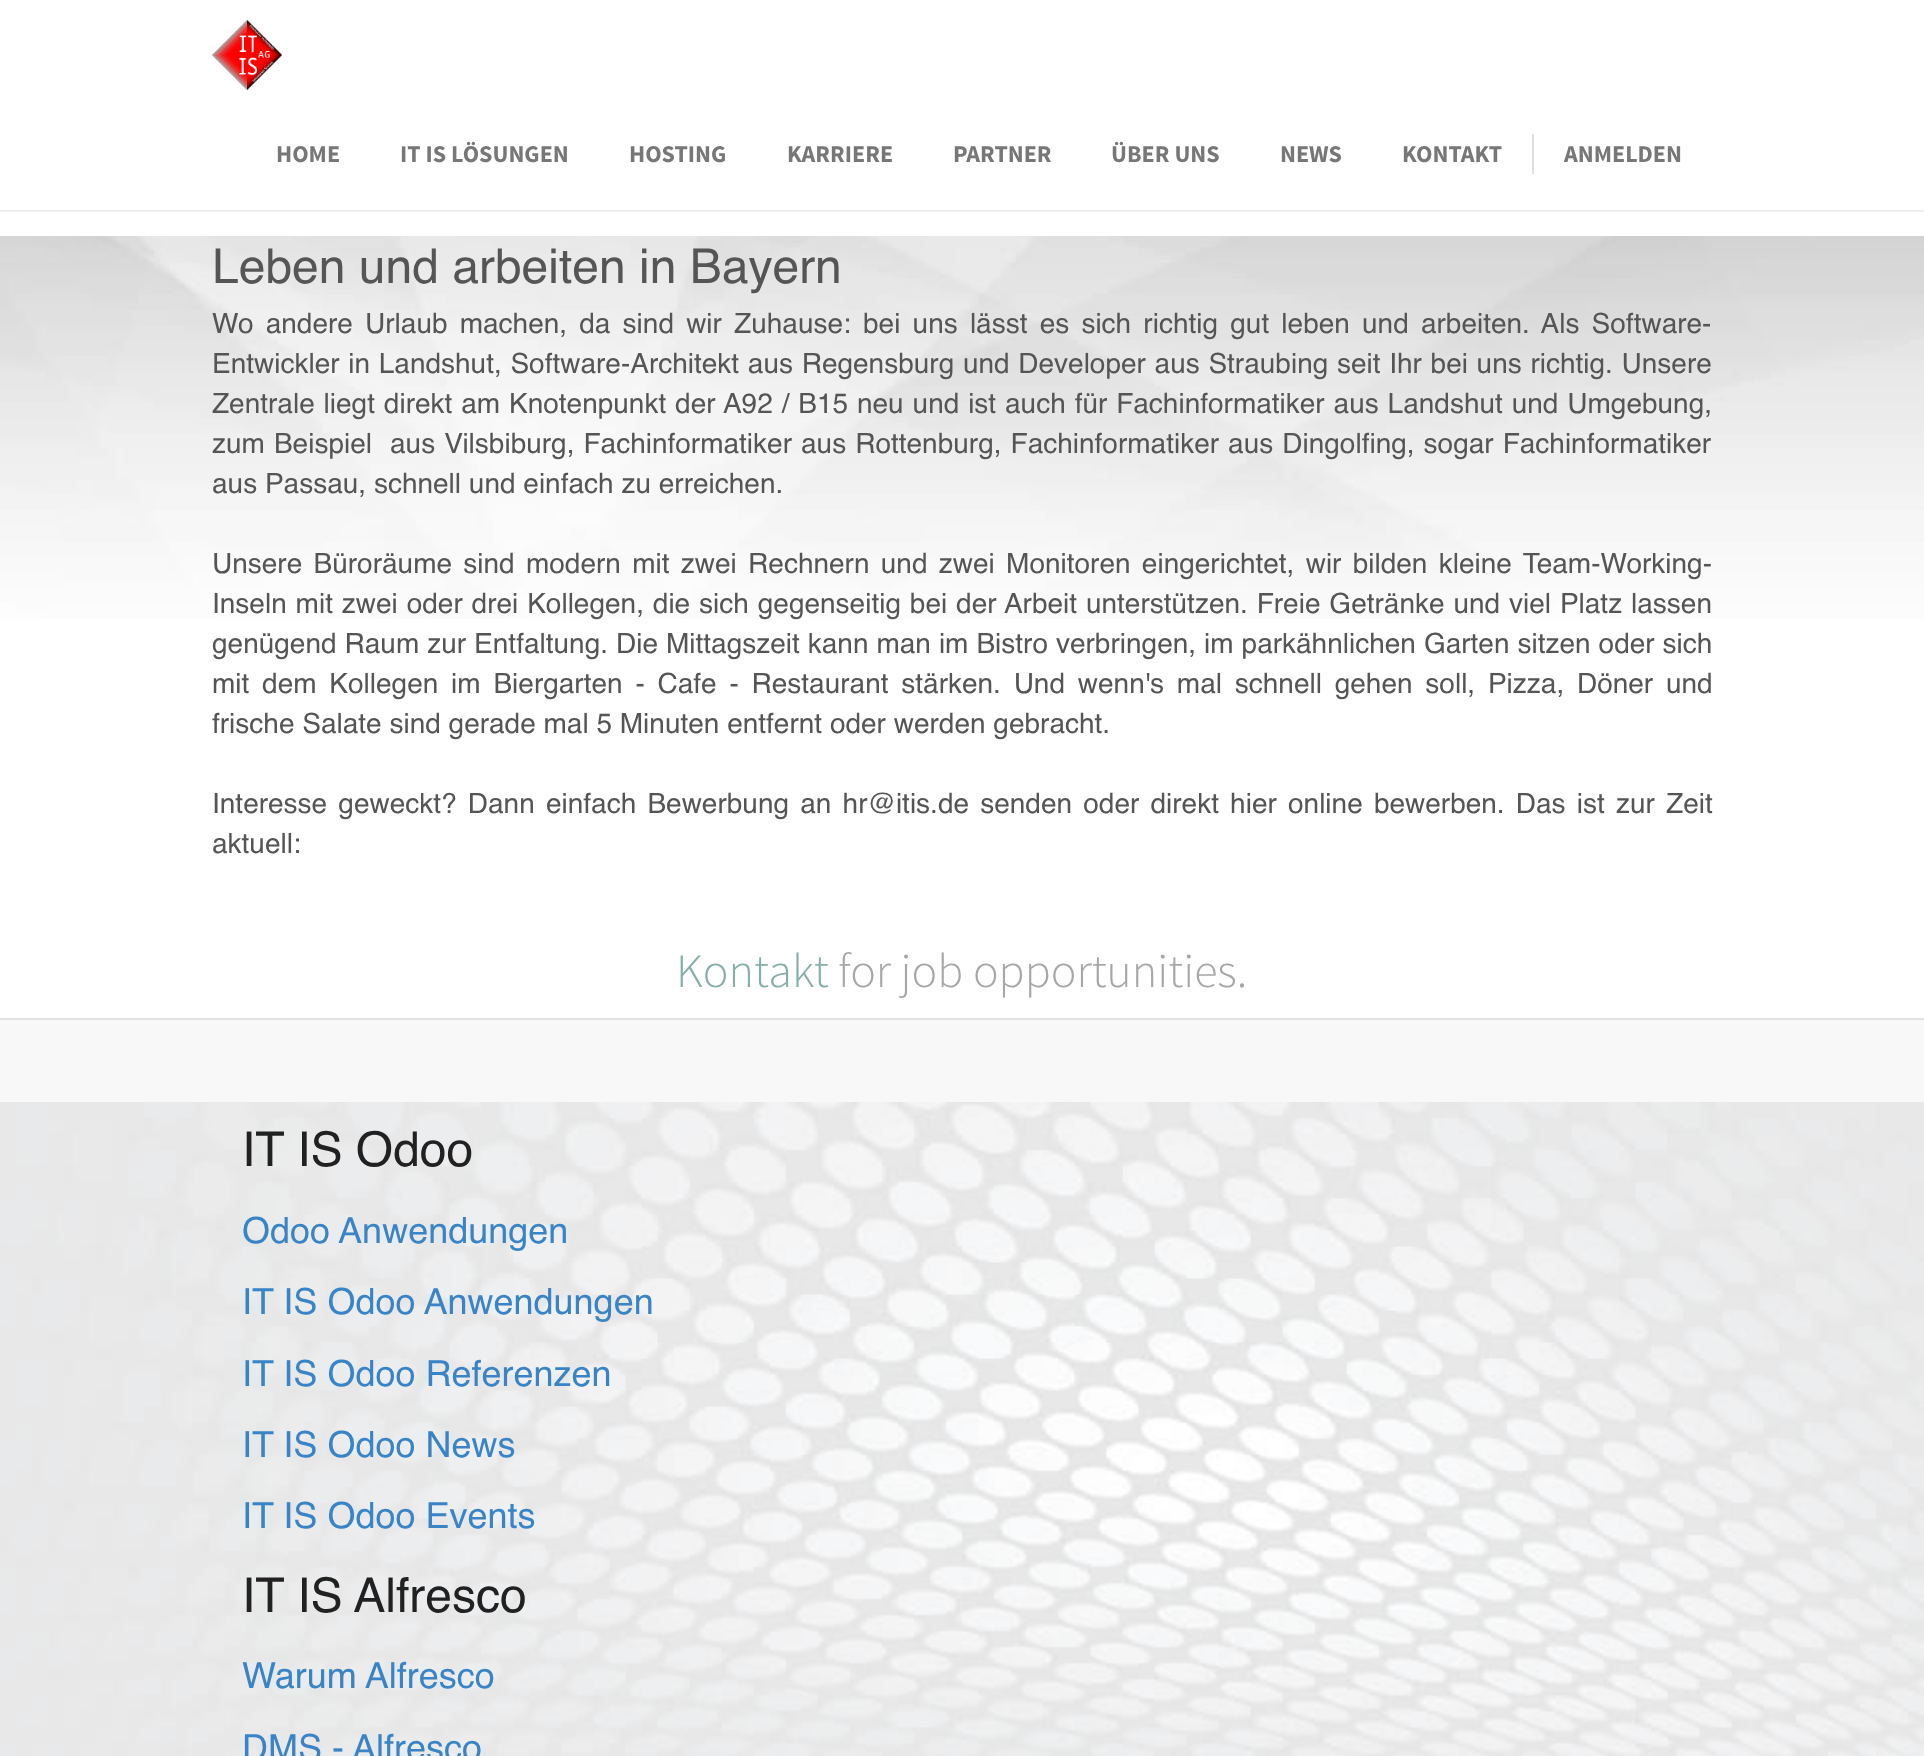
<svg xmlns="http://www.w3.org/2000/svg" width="1924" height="1756">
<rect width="100%" height="100%" fill="#fff"/>
<rect y="210" width="1924" height="2" fill="#eee"/>
<image x="212" y="20" width="70" height="70" href="media/1.png"/>
<text x="276" y="162" style="font-family:Source Sans Pro;font-size:24px;font-weight:bold;fill:#777">HOME</text>
<text x="400" y="162" style="font-family:Source Sans Pro;font-size:24px;font-weight:bold;fill:#777">IT IS LÖSUNGEN</text>
<text x="629" y="162" style="font-family:Source Sans Pro;font-size:24px;font-weight:bold;fill:#777">HOSTING</text>
<text x="787" y="162" style="font-family:Source Sans Pro;font-size:24px;font-weight:bold;fill:#777">KARRIERE</text>
<text x="953" y="162" style="font-family:Source Sans Pro;font-size:24px;font-weight:bold;fill:#777">PARTNER</text>
<text x="1111" y="162" style="font-family:Source Sans Pro;font-size:24px;font-weight:bold;fill:#777">ÜBER UNS</text>
<text x="1280" y="162" style="font-family:Source Sans Pro;font-size:24px;font-weight:bold;fill:#777">NEWS</text>
<text x="1402" y="162" style="font-family:Source Sans Pro;font-size:24px;font-weight:bold;fill:#777">KONTAKT</text>
<rect x="1532" y="134" width="2" height="40" fill="#e0e0e0"/>
<text x="1564" y="162" style="font-family:Source Sans Pro;font-size:24px;font-weight:bold;fill:#777">ANMELDEN</text>
<image x="0" y="236" width="1924" height="383" href="media/2.png"/>
<text x="212" y="283" style="font-family:Helvetica;font-size:48px;fill:#555">Leben und arbeiten in Bayern</text>
<text x="212" y="333" word-spacing="4.4" style="font-family:Helvetica;font-size:28px;fill:#555">Wo andere Urlaub machen, da sind wir Zuhause: bei uns lässt es sich richtig gut leben und arbeiten. Als Software-</text>
<text x="212" y="373" word-spacing="0.9" style="font-family:Helvetica;font-size:28px;fill:#555">Entwickler in Landshut, Software-Architekt aus Regensburg und Developer aus Straubing seit Ihr bei uns richtig. Unsere</text>
<text x="212" y="413" word-spacing="1.1" style="font-family:Helvetica;font-size:28px;fill:#555">Zentrale liegt direkt am Knotenpunkt der A92 / B15 neu und ist auch für Fachinformatiker aus Landshut und Umgebung,</text>
<text x="212" y="453" word-spacing="1.25" style="font-family:Helvetica;font-size:28px;fill:#555" xml:space="preserve">zum Beispiel  aus Vilsbiburg, Fachinformatiker aus Rottenburg, Fachinformatiker aus Dingolfing, sogar Fachinformatiker</text>
<text x="212" y="493" style="font-family:Helvetica;font-size:28px;fill:#555">aus Passau, schnell und einfach zu erreichen.</text>
<text x="212" y="573" word-spacing="3.5" style="font-family:Helvetica;font-size:28px;fill:#555">Unsere Büroräume sind modern mit zwei Rechnern und zwei Monitoren eingerichtet, wir bilden kleine Team-Working-</text>
<text x="212" y="613" word-spacing="1.1" style="font-family:Helvetica;font-size:28px;fill:#555">Inseln mit zwei oder drei Kollegen, die sich gegenseitig bei der Arbeit unterstützen. Freie Getränke und viel Platz lassen</text>
<text x="212" y="653" word-spacing="0.2" style="font-family:Helvetica;font-size:28px;fill:#555">genügend Raum zur Entfaltung. Die Mittagszeit kann man im Bistro verbringen, im parkähnlichen Garten sitzen oder sich</text>
<text x="212" y="693" word-spacing="5" style="font-family:Helvetica;font-size:28px;fill:#555">mit dem Kollegen im Biergarten - Cafe - Restaurant stärken. Und wenn's mal schnell gehen soll, Pizza, Döner und</text>
<text x="212" y="733" style="font-family:Helvetica;font-size:28px;fill:#555">frische Salate sind gerade mal 5 Minuten entfernt oder werden gebracht.</text>
<text x="212" y="813" word-spacing="3.4" style="font-family:Helvetica;font-size:28px;fill:#555">Interesse geweckt? Dann einfach Bewerbung an hr@itis.de senden oder direkt hier online bewerben. Das ist zur Zeit</text>
<text x="212" y="853" style="font-family:Helvetica;font-size:28px;fill:#555">aktuell:</text>
<text x="676" y="987" style="font-family:Source Sans Pro;font-size:48px;font-weight:300;fill:#85afa8">Kontakt</text>
<text x="838" y="987" style="font-family:Source Sans Pro;font-size:48px;font-weight:300;fill:#a7a7a7">for job opportunities.</text>
<rect y="1020" width="1924" height="82" fill="#f8f8f8"/>
<rect y="1018" width="1924" height="2" fill="#e2e2e2"/>
<image x="0" y="1102" width="1924" height="654" href="media/3.png"/>
<text x="242" y="1166" style="font-family:Helvetica;font-size:48px;fill:#212121">IT IS Odoo</text>
<text x="242" y="1243" style="font-family:Helvetica;font-size:36px;fill:#3984c6">Odoo Anwendungen</text>
<text x="242" y="1314" style="font-family:Helvetica;font-size:36px;fill:#3984c6">IT IS Odoo Anwendungen</text>
<text x="242" y="1386" style="font-family:Helvetica;font-size:36px;fill:#3984c6">IT IS Odoo Referenzen</text>
<text x="242" y="1457" style="font-family:Helvetica;font-size:36px;fill:#3984c6">IT IS Odoo News</text>
<text x="242" y="1528" style="font-family:Helvetica;font-size:36px;fill:#3984c6">IT IS Odoo Events</text>
<text x="242" y="1612" style="font-family:Helvetica;font-size:48px;fill:#212121">IT IS Alfresco</text>
<text x="242" y="1688" style="font-family:Helvetica;font-size:36px;fill:#3984c6">Warum Alfresco</text>
<text x="242" y="1760" style="font-family:Helvetica;font-size:36px;fill:#3984c6">DMS - Alfresco</text>
</svg>
